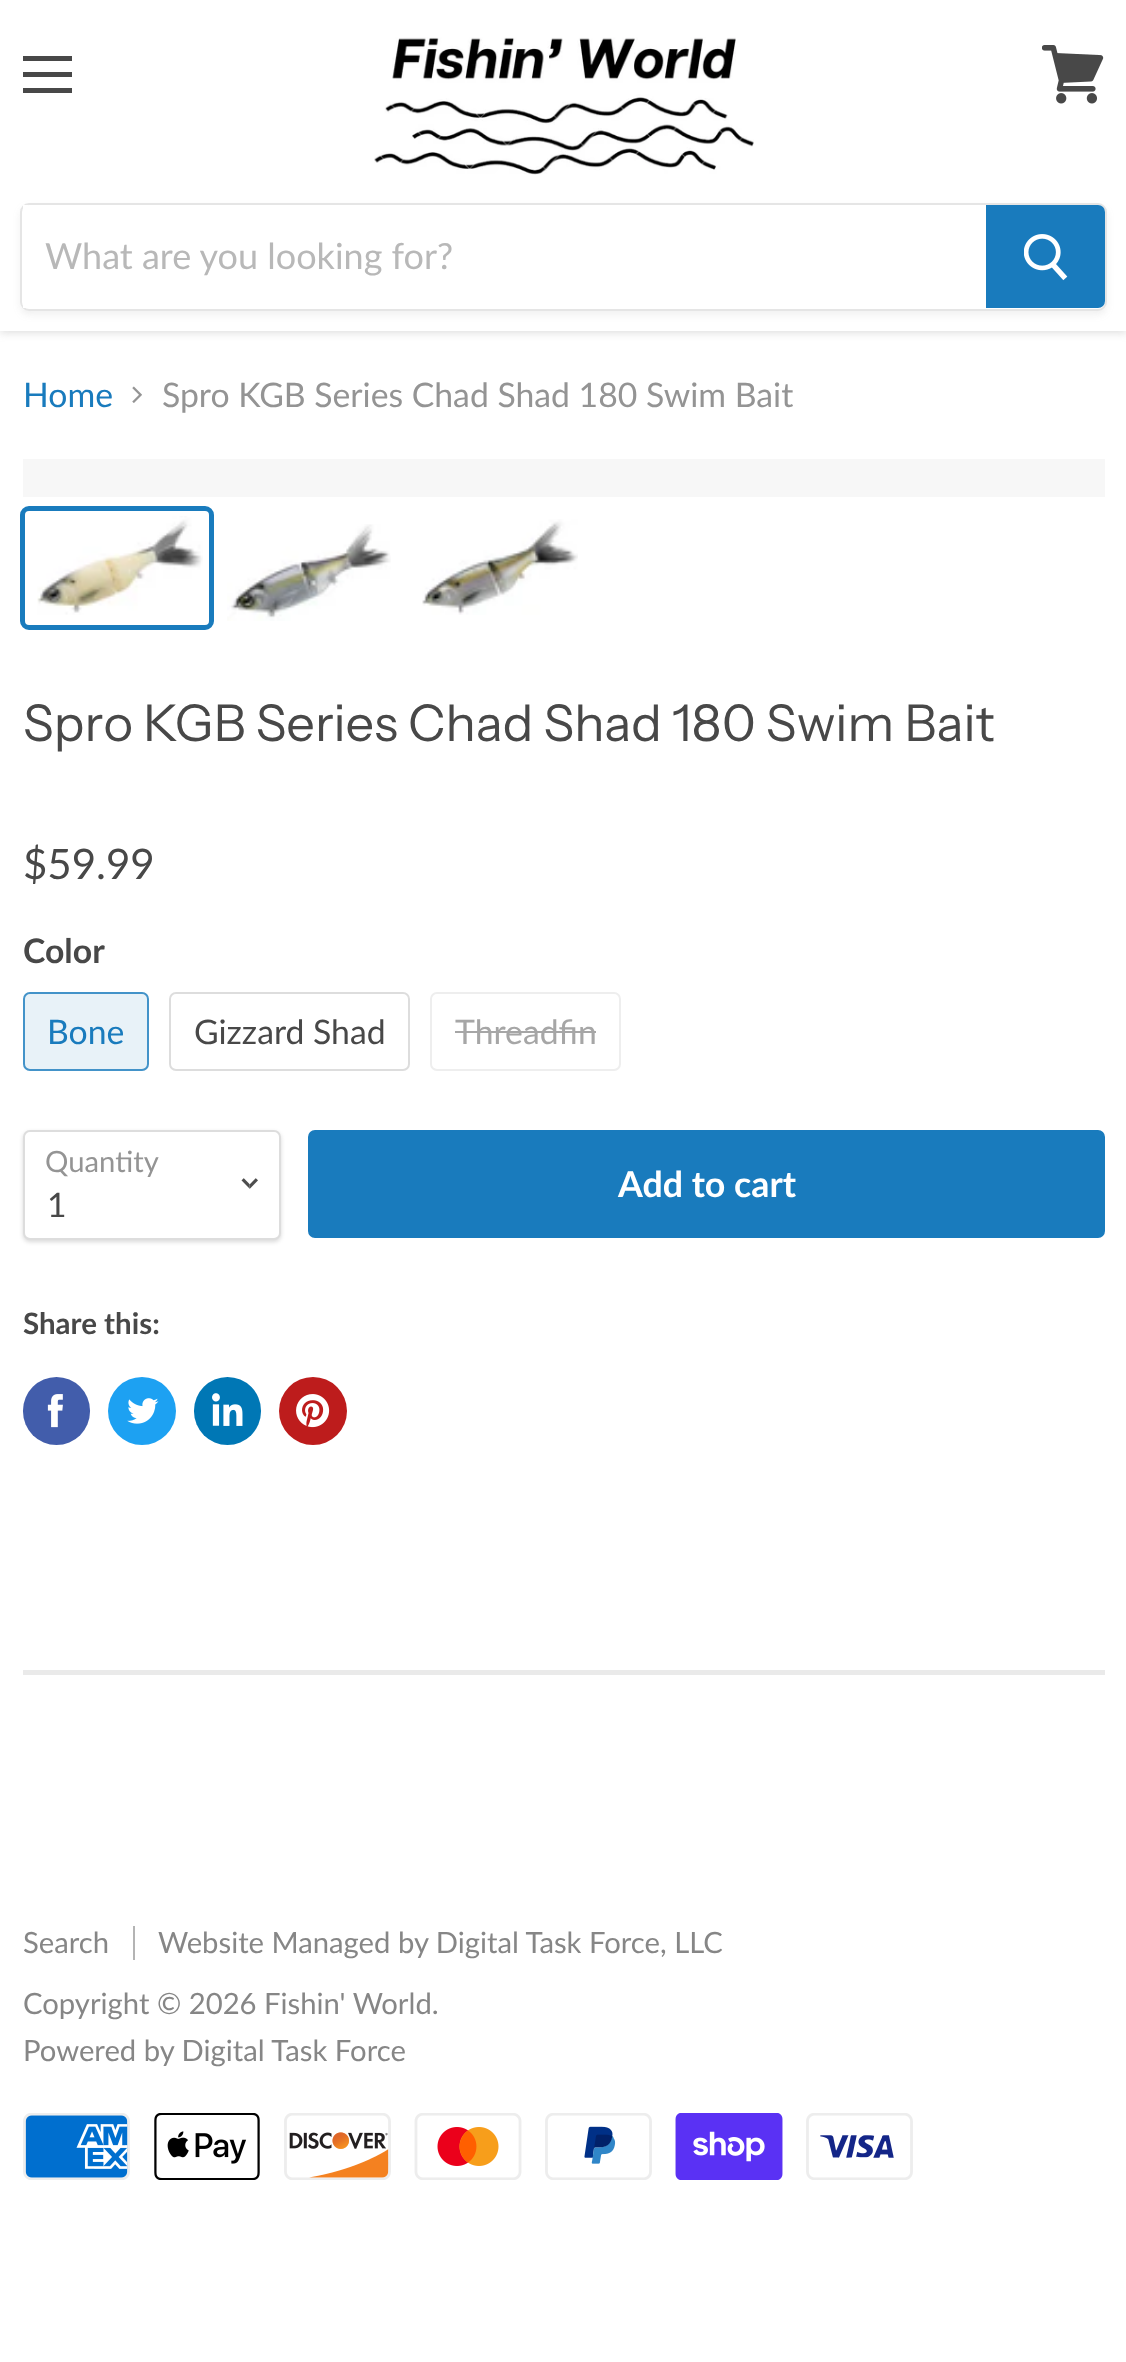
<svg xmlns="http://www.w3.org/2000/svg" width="1126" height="2362">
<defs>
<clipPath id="clip1"><path d="M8 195h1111v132h-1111zm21 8h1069c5 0 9 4 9 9v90c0 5-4 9-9 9h-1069c-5 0-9-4-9-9v-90c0-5 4-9 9-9z" clip-rule="evenodd"/></clipPath>
</defs>
<rect width="100%" height="100%" fill="#fff"/>
<rect y="2" width="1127" height="331" fill="#7f7f7f40" filter="blur(4.5px)"/>
<rect width="1126" height="331" fill="#fff"/>
<rect x="23" y="56" width="49" height="5" fill="#484848"/>
<rect x="23" y="72" width="49" height="5" fill="#484848"/>
<rect x="23" y="88" width="49" height="5" fill="#484848"/>
<image x="1042" y="45" width="62" height="59" href="media/1.png"/>
<image x="374" y="37" width="380" height="138" href="media/2.png"/>
<g clip-path="url(#clip1)">
<rect x="20" y="207" width="1087" height="108" rx="9" fill="#7f7f7f1c" filter="blur(3.5px)"/>
</g>
<rect x="21" y="204" width="1085" height="106" rx="8" fill="none" stroke="#7f7f7f33" stroke-width="2"/>
<rect x="23" y="205" width="5" height="103" fill="#fff"/>
<text x="45" y="269" style="font-family:Lato;font-size:36px;fill:#b8b8b8">What are you looking for?</text>
<path d="M987 206h111c3.5 0 6 2.5 6 6v89c0 3.5-2.5 6-6 6h-111z" fill="#197bbd" stroke="#197bbd" stroke-width="2"/>
<image x="1024" y="234" width="44" height="47" href="media/3.png"/>
<text x="23" y="407" style="font-family:Lato;font-size:33.75px;fill:#197bbd">Home</text>
<image x="132" y="386" width="10" height="17" href="media/4.png"/>
<text x="162" y="407" style="font-family:Lato;font-size:33.75px;fill:#949494">Spro KGB Series Chad Shad 180 Swim Bait</text>
<rect x="23" y="459" width="1082" height="38" fill="#f7f7f7"/>
<rect x="22.5" y="508.5" width="189" height="119" rx="6.5" fill="none" stroke="#197bbd" stroke-width="5"/>
<image x="37" y="516" width="166" height="99" href="media/5.png"/>
<image x="227" y="524" width="164" height="97" href="media/6.png"/>
<image x="422" y="519" width="156" height="96" href="media/7.png"/>
<text x="23" y="741" style="font-family:Instrument Sans;font-size:50.6px;fill:#484848">Spro KGB Series Chad Shad 180 Swim Bait</text>
<text x="23" y="879" style="font-family:Lato;font-size:42px;fill:#484848">$59.99</text>
<text x="23" y="963" style="font-family:Lato;font-size:33.75px;font-weight:bold;fill:#484848">Color</text>
<rect x="23" y="992" width="126" height="79" rx="7" fill="#e8f2f8"/>
<rect x="24" y="993" width="124" height="77" rx="6" fill="none" stroke="#197bbdcc" stroke-width="2"/>
<text x="47" y="1044" style="font-family:Lato;font-size:33.75px;fill:#197bbd">Bone</text>
<rect x="170" y="993" width="239" height="77" rx="6" fill="none" stroke="#ddd" stroke-width="2"/>
<text x="194" y="1044" style="font-family:Lato;font-size:33.75px;fill:#484848">Gizzard Shad</text>
<rect x="431" y="993" width="189" height="77" rx="6" fill="none" stroke="#eee" stroke-width="2"/>
<text x="455" y="1044" style="font-family:Lato;font-size:33.75px;fill:#a6a6a6">Threadfin</text>
<rect x="455" y="1031" width="141" height="2" fill="#a6a6a6"/>
<rect x="23" y="1132" width="258" height="110" rx="7" fill="#00000026" filter="blur(2px)"/>
<rect x="24" y="1131" width="256" height="108" rx="6" fill="#fff" stroke="#ddd" stroke-width="2"/>
<text x="45" y="1172" style="font-family:Lato;font-size:29.25px;fill:#949494">Quantity</text>
<image x="241" y="1178" width="17" height="11" href="media/8.png"/>
<text x="47" y="1217" style="font-family:Lato;font-size:33.75px;fill:#484848">1</text>
<rect x="309" y="1131" width="795" height="106" rx="6" fill="#197bbd" stroke="#197bbd" stroke-width="2"/>
<text x="618" y="1197" style="font-family:Lato;font-size:35.75px;font-weight:bold;fill:#fff">Add to cart</text>
<text x="23" y="1334" style="font-family:Lato;font-size:29.5px;font-weight:bold;fill:#484848">Share this:</text>
<rect x="23" y="1377" width="67" height="68" rx="33.5" fill="#425dab"/>
<image x="47" y="1394" width="16" height="34" href="media/9.png"/>
<circle cx="142" cy="1411" r="34" fill="#1da1f2"/>
<image x="127" y="1398" width="32" height="26" href="media/10.png"/>
<rect x="194" y="1377" width="67" height="68" rx="33.5" fill="#0077b5"/>
<image x="212" y="1393" width="31" height="33" href="media/11.png"/>
<circle cx="313" cy="1411" r="34" fill="#bd1c1c"/>
<image x="296" y="1394" width="34" height="34" href="media/12.png"/>
<rect x="23" y="1670" width="1082" height="5" fill="#7f7f7f29"/>
<rect x="133" y="1926" width="2" height="34" fill="#b4b4b4"/>
<text x="23" y="1953" style="font-family:Lato;font-size:29.25px;fill:#868686">Search</text>
<text x="158" y="1953" style="font-family:Lato;font-size:29.25px;fill:#868686">Website Managed by Digital Task Force, LLC</text>
<text x="23" y="2014" style="font-family:Lato;font-size:29.25px;fill:#868686">Copyright © 2026 Fishin' World.</text>
<text x="23" y="2061" style="font-family:Lato;font-size:29.25px;fill:#868686">Powered by Digital Task Force</text>
<image x="23" y="2113" width="107" height="67" href="media/13.png"/>
<image x="154" y="2113" width="106" height="67" href="media/14.png"/>
<image x="284" y="2113" width="107" height="67" href="media/15.png"/>
<image x="414" y="2113" width="108" height="67" href="media/16.png"/>
<image x="545" y="2113" width="107" height="67" href="media/17.png"/>
<image x="675" y="2113" width="108" height="67" href="media/18.png"/>
<image x="806" y="2113" width="107" height="67" href="media/19.png"/>
</svg>
